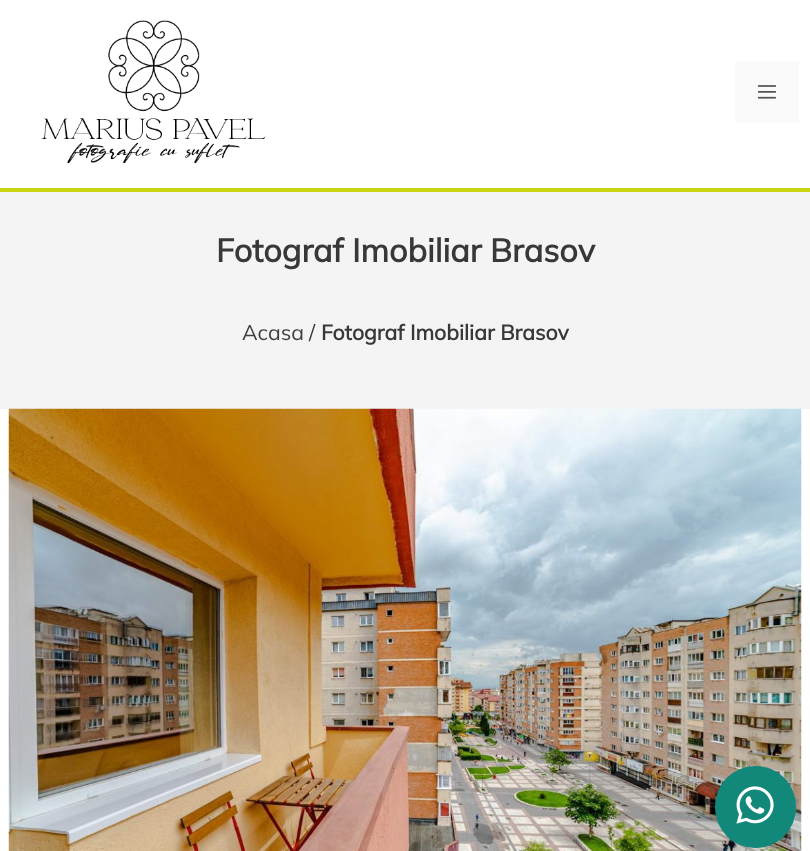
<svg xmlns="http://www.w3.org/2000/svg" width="810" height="851">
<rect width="100%" height="100%" fill="#fff"/>
<rect y="188" width="810" height="4" fill="#c8d510"/>
<image x="41" y="20" width="225" height="144" href="media/1.png"/>
<rect x="735" y="61" width="64" height="62" fill="#fafafa"/>
<image x="758" y="85" width="18" height="14" href="media/2.png"/>
<rect y="192" width="810" height="217" fill="#f4f4f4"/>
<text x="216" y="262" style="font-family:Mulish;font-size:32.5px;font-weight:bold;fill:#383838">Fotograf Imobiliar Brasov</text>
<text x="242" y="340" style="font-family:Mulish;font-size:21.25px;fill:#3f3f3f">Acasa</text>
<text x="309" y="340" style="font-family:Mulish;font-size:21.25px;fill:#383838">/</text>
<text x="321" y="340" style="font-family:Mulish;font-size:21.25px;font-weight:bold;fill:#383838">Fotograf Imobiliar Brasov</text>
<image x="8" y="408" width="794" height="443" href="media/3.png"/>
<rect x="715" y="766" width="81" height="82" rx="40.5" fill="#11887a"/>
<image x="736" y="786" width="38" height="38" href="media/4.png"/>
</svg>
